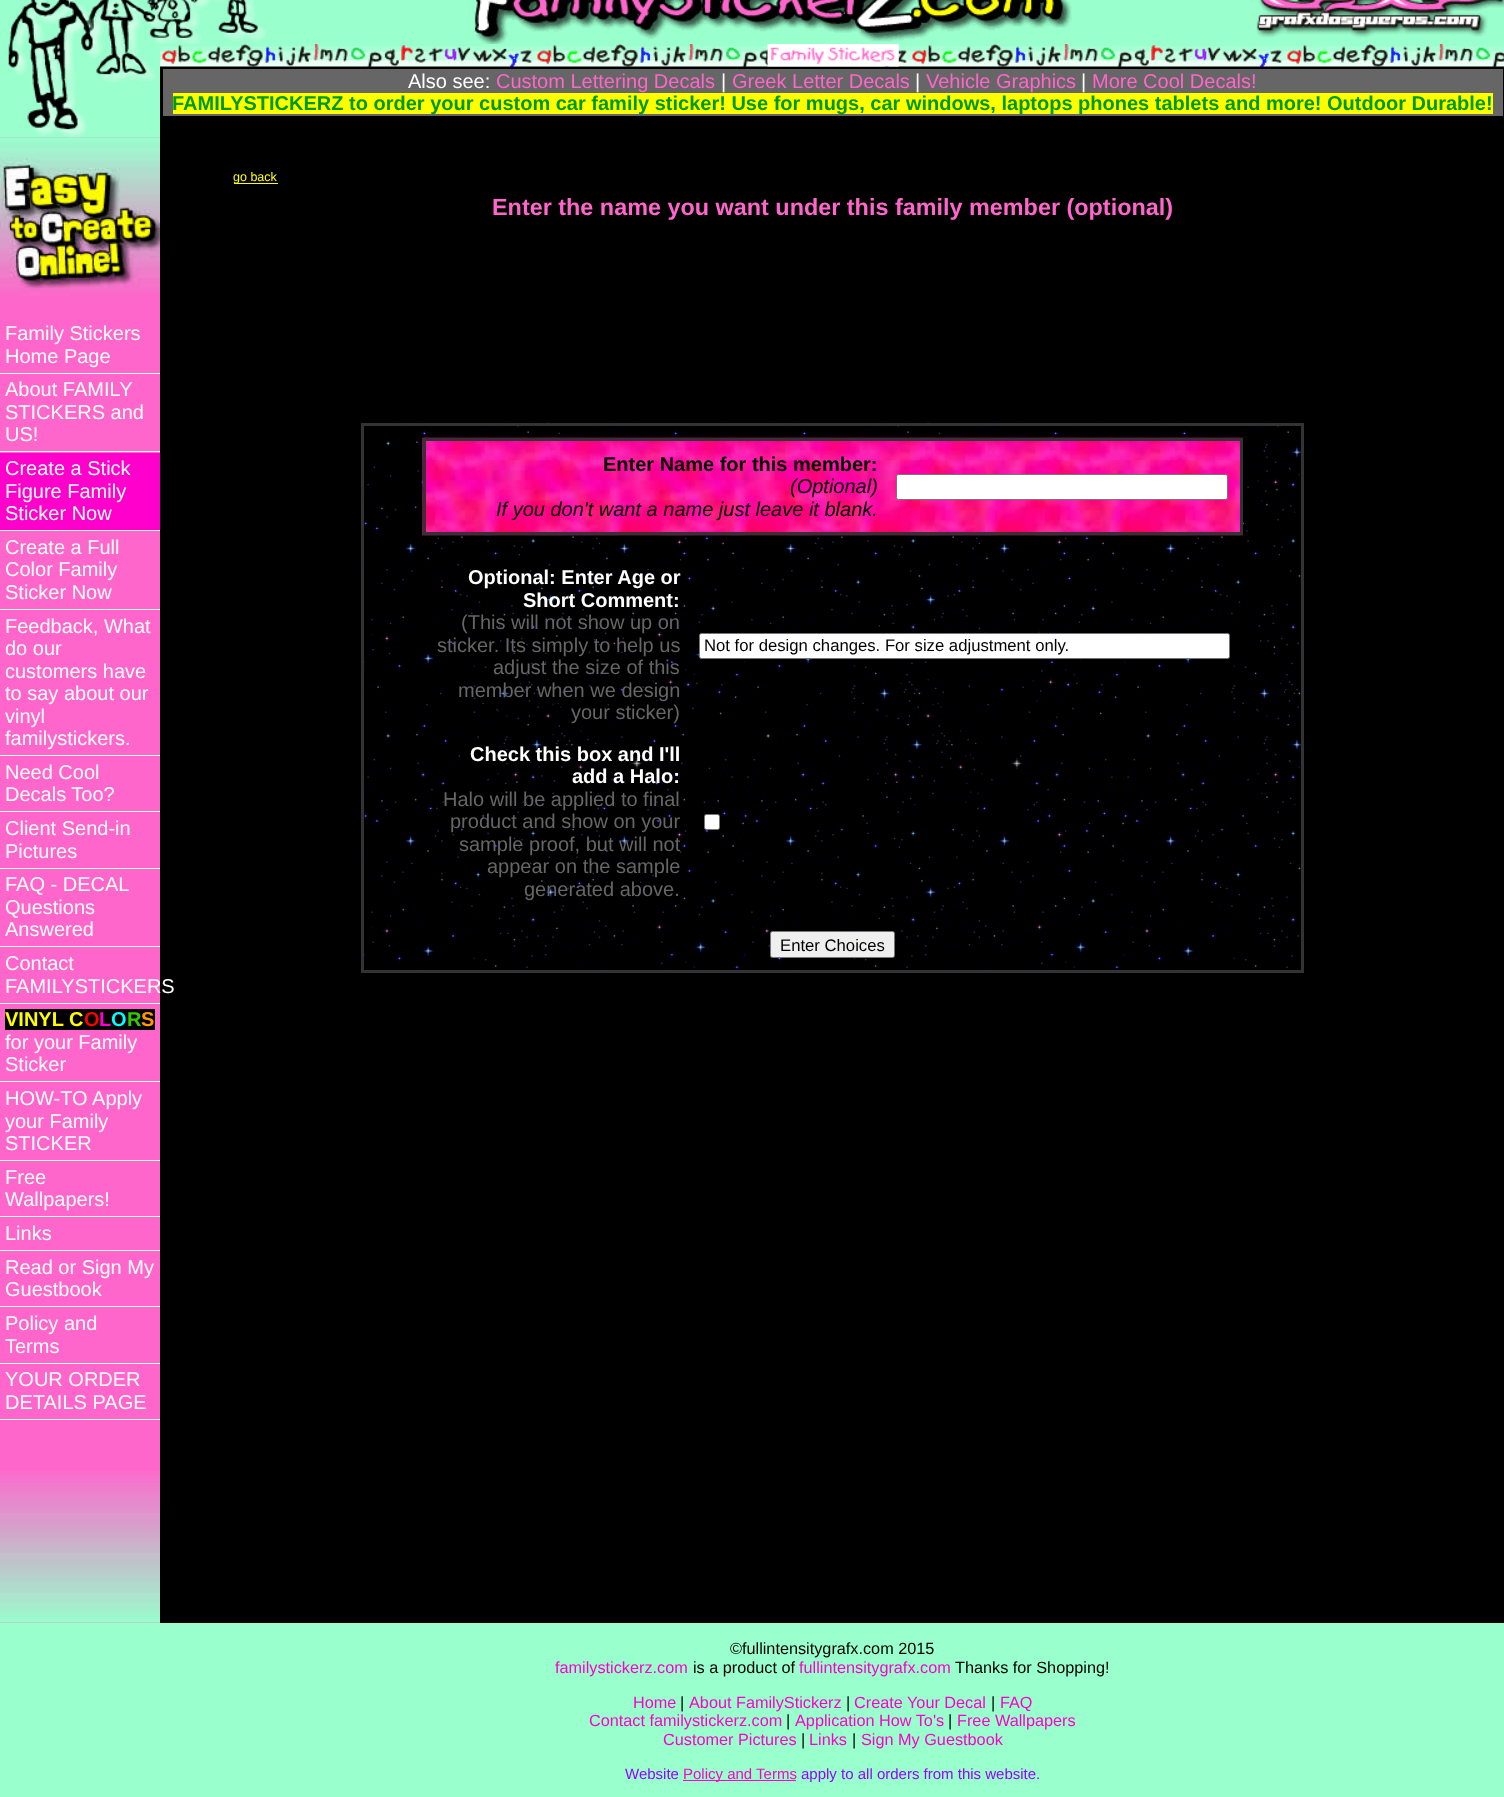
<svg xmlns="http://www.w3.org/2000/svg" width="1504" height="1797">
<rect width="100%" height="100%" fill="#000"/>
<rect width="1504" height="44" fill="#9fc"/>
<image x="9" y="0" width="257" height="44" href="media/1.png"/>
<image x="474" y="0" width="598" height="44" href="media/2.png"/>
<image x="1256" y="0" width="248" height="38" href="media/3.png"/>
<rect y="137" width="160" height="1486" fill="#f6c"/>
<image x="0" y="44" width="160" height="94" href="media/4.png"/>
<image x="0" y="137" width="160" height="160" href="media/5.png"/>
<rect y="373" width="160" height="1" fill="#fff"/>
<text x="5" y="340" style="font-family:Liberation Sans;font-size:20px;fill:#fff">Family Stickers</text>
<text x="5" y="363" style="font-family:Liberation Sans;font-size:20px;fill:#fff">Home Page</text>
<rect y="451" width="160" height="1" fill="#fff"/>
<text x="5" y="396" style="font-family:Liberation Sans;font-size:20px;fill:#fff">About FAMILY</text>
<text x="5" y="419" style="font-family:Liberation Sans;font-size:20px;fill:#fff">STICKERS and</text>
<text x="5" y="441" style="font-family:Liberation Sans;font-size:20px;fill:#fff">US!</text>
<rect y="453" width="160" height="77" fill="#f0c"/>
<rect y="530" width="160" height="1" fill="#fff"/>
<text x="5" y="475" style="font-family:Liberation Sans;font-size:20px;fill:#fff">Create a Stick</text>
<text x="5" y="498" style="font-family:Liberation Sans;font-size:20px;fill:#fff">Figure Family</text>
<text x="5" y="520" style="font-family:Liberation Sans;font-size:20px;fill:#fff">Sticker Now</text>
<rect y="609" width="160" height="1" fill="#fff"/>
<text x="5" y="554" style="font-family:Liberation Sans;font-size:20px;fill:#fff">Create a Full</text>
<text x="5" y="576" style="font-family:Liberation Sans;font-size:20px;fill:#fff">Color Family</text>
<text x="5" y="599" style="font-family:Liberation Sans;font-size:20px;fill:#fff">Sticker Now</text>
<rect y="755" width="160" height="1" fill="#fff"/>
<text x="5" y="633" style="font-family:Liberation Sans;font-size:20px;fill:#fff">Feedback, What</text>
<text x="5" y="655" style="font-family:Liberation Sans;font-size:20px;fill:#fff">do our</text>
<text x="5" y="678" style="font-family:Liberation Sans;font-size:20px;fill:#fff">customers have</text>
<text x="5" y="700" style="font-family:Liberation Sans;font-size:20px;fill:#fff">to say about our</text>
<text x="5" y="723" style="font-family:Liberation Sans;font-size:20px;fill:#fff">vinyl</text>
<text x="5" y="745" style="font-family:Liberation Sans;font-size:20px;fill:#fff">familystickers.</text>
<rect y="811" width="160" height="1" fill="#fff"/>
<text x="5" y="779" style="font-family:Liberation Sans;font-size:20px;fill:#fff">Need Cool</text>
<text x="5" y="801" style="font-family:Liberation Sans;font-size:20px;fill:#fff">Decals Too?</text>
<rect y="868" width="160" height="1" fill="#fff"/>
<text x="5" y="835" style="font-family:Liberation Sans;font-size:20px;fill:#fff">Client Send-in</text>
<text x="5" y="858" style="font-family:Liberation Sans;font-size:20px;fill:#fff">Pictures</text>
<rect y="946" width="160" height="1" fill="#fff"/>
<text x="5" y="891" style="font-family:Liberation Sans;font-size:20px;fill:#fff">FAQ - DECAL</text>
<text x="5" y="914" style="font-family:Liberation Sans;font-size:20px;fill:#fff">Questions</text>
<text x="5" y="936" style="font-family:Liberation Sans;font-size:20px;fill:#fff">Answered</text>
<rect y="1003" width="160" height="1" fill="#fff"/>
<text x="5" y="970" style="font-family:Liberation Sans;font-size:20px;fill:#fff">Contact</text>
<text x="5" y="993" style="font-family:Liberation Sans;font-size:20px;fill:#fff">FAMILYSTICKERS</text>
<rect y="1081" width="160" height="1" fill="#fff"/>
<rect x="5" y="1009" width="150" height="21" fill="#000"/>
<text x="5" y="1026" style="font-family:Liberation Sans;font-size:20px;font-weight:bold;fill:#ff0">VINYL C</text>
<text x="84" y="1026" style="font-family:Liberation Sans;font-size:20px;font-weight:bold;fill:#f00">O</text>
<text x="99" y="1026" style="font-family:Liberation Sans;font-size:20px;font-weight:bold;fill:#f0c">L</text>
<text x="111" y="1026" style="font-family:Liberation Sans;font-size:20px;font-weight:bold;fill:#0ff">O</text>
<text x="127" y="1026" style="font-family:Liberation Sans;font-size:20px;font-weight:bold;fill:#3c0">R</text>
<text x="141" y="1026" style="font-family:Liberation Sans;font-size:20px;font-weight:bold;fill:#f90">S</text>
<text x="5" y="1049" style="font-family:Liberation Sans;font-size:20px;fill:#fff">for your Family</text>
<text x="5" y="1071" style="font-family:Liberation Sans;font-size:20px;fill:#fff">Sticker</text>
<rect y="1160" width="160" height="1" fill="#fff"/>
<text x="5" y="1105" style="font-family:Liberation Sans;font-size:20px;fill:#fff">HOW-TO Apply</text>
<text x="5" y="1128" style="font-family:Liberation Sans;font-size:20px;fill:#fff">your Family</text>
<text x="5" y="1150" style="font-family:Liberation Sans;font-size:20px;fill:#fff">STICKER</text>
<rect y="1216" width="160" height="1" fill="#fff"/>
<text x="5" y="1184" style="font-family:Liberation Sans;font-size:20px;fill:#fff">Free</text>
<text x="5" y="1206" style="font-family:Liberation Sans;font-size:20px;fill:#fff">Wallpapers!</text>
<rect y="1250" width="160" height="1" fill="#fff"/>
<text x="5" y="1240" style="font-family:Liberation Sans;font-size:20px;fill:#fff">Links</text>
<rect y="1306" width="160" height="1" fill="#fff"/>
<text x="5" y="1274" style="font-family:Liberation Sans;font-size:20px;fill:#fff">Read or Sign My</text>
<text x="5" y="1296" style="font-family:Liberation Sans;font-size:20px;fill:#fff">Guestbook</text>
<rect y="1363" width="160" height="1" fill="#fff"/>
<text x="5" y="1330" style="font-family:Liberation Sans;font-size:20px;fill:#fff">Policy and</text>
<text x="5" y="1353" style="font-family:Liberation Sans;font-size:20px;fill:#fff">Terms</text>
<rect y="1419" width="160" height="1" fill="#fff"/>
<text x="5" y="1386" style="font-family:Liberation Sans;font-size:20px;fill:#fff">YOUR ORDER</text>
<text x="5" y="1409" style="font-family:Liberation Sans;font-size:20px;fill:#fff">DETAILS PAGE</text>
<image x="0" y="1471" width="160" height="152" href="media/6.png"/>
<image x="160" y="44" width="1344" height="23" href="media/7.png"/>
<image x="767" y="44" width="132" height="23" href="media/8.png"/>
<rect x="163" y="69" width="1340" height="47" fill="#666"/>
<text x="408" y="88" style="font-family:Liberation Sans;font-size:20px;fill:#fff">Also see:</text>
<text x="496" y="88" style="font-family:Liberation Sans;font-size:20px;fill:#f6c">Custom Lettering Decals</text>
<text x="721" y="88" style="font-family:Liberation Sans;font-size:20px;fill:#fff">|</text>
<text x="732" y="88" style="font-family:Liberation Sans;font-size:20px;fill:#f6c">Greek Letter Decals</text>
<text x="915" y="88" style="font-family:Liberation Sans;font-size:20px;fill:#fff">|</text>
<text x="926" y="88" style="font-family:Liberation Sans;font-size:20px;fill:#f6c">Vehicle Graphics</text>
<text x="1081" y="88" style="font-family:Liberation Sans;font-size:20px;fill:#fff">|</text>
<text x="1092" y="88" style="font-family:Liberation Sans;font-size:20px;fill:#f6c">More Cool Decals!</text>
<rect x="173" y="93" width="1320" height="21" fill="#ff0"/>
<text x="172" y="110" style="font-family:Liberation Sans;font-size:20px;font-weight:bold;fill:#090">FAMILYSTICKERZ to order your custom car family sticker! Use for mugs, car windows, laptops phones tablets and more! Outdoor Durable!</text>
<rect x="234" y="183" width="44" height="1" fill="#ff0"/>
<text x="233" y="181" style="font-family:Liberation Sans;font-size:12.5px;fill:#ff0">go back</text>
<text x="492" y="215" style="font-family:Liberation Sans;font-size:23.4px;font-weight:bold;fill:#f6c">Enter the name you want under this family member (optional)</text>
<image x="361" y="422" width="943" height="548" href="media/9.png"/>
<rect x="362.5" y="424.5" width="940" height="547" fill="none" stroke="#333" stroke-width="3"/>
<image x="422" y="437" width="821" height="99" href="media/10.png"/>
<rect x="424.5" y="439.5" width="817" height="94" fill="none" stroke="#333" stroke-width="3"/>
<text x="603" y="471" style="font-family:Liberation Sans;font-size:20px;font-weight:bold;fill:#000">Enter Name for this member:</text>
<text x="790" y="493" style="font-family:Liberation Sans;font-size:20px;font-style:italic;fill:#000">(Optional)</text>
<text x="496" y="516" style="font-family:Liberation Sans;font-size:20px;font-style:italic;fill:#000">If you don't want a name just leave it blank.</text>
<rect x="896.5" y="474.5" width="331" height="25" rx="2" fill="#fff" stroke="#767676"/>
<text x="468" y="584" style="font-family:Liberation Sans;font-size:20px;font-weight:bold;fill:#fff">Optional: Enter Age or</text>
<text x="523" y="607" style="font-family:Liberation Sans;font-size:20px;font-weight:bold;fill:#fff">Short Comment:</text>
<text x="461" y="629" style="font-family:Liberation Sans;font-size:20px;fill:#666">(This will not show up on</text>
<text x="437" y="652" style="font-family:Liberation Sans;font-size:20px;fill:#666">sticker. Its simply to help us</text>
<text x="493" y="674" style="font-family:Liberation Sans;font-size:20px;fill:#666">adjust the size of this</text>
<text x="458" y="697" style="font-family:Liberation Sans;font-size:20px;fill:#666">member when we design</text>
<text x="571" y="719" style="font-family:Liberation Sans;font-size:20px;fill:#666">your sticker)</text>
<rect x="699.5" y="633.5" width="530" height="25" rx="2" fill="#fff" stroke="#767676"/>
<text x="704" y="651" style="font-family:Liberation Sans;font-size:16.7px;fill:#000">Not for design changes. For size adjustment only.</text>
<text x="470" y="761" style="font-family:Liberation Sans;font-size:20px;font-weight:bold;fill:#fff">Check this box and I'll</text>
<text x="572" y="783" style="font-family:Liberation Sans;font-size:20px;font-weight:bold;fill:#fff">add a Halo:</text>
<text x="443" y="806" style="font-family:Liberation Sans;font-size:20px;fill:#666">Halo will be applied to final</text>
<text x="450" y="828" style="font-family:Liberation Sans;font-size:20px;fill:#666">product and show on your</text>
<text x="459" y="851" style="font-family:Liberation Sans;font-size:20px;fill:#666">sample proof, but will not</text>
<text x="487" y="873" style="font-family:Liberation Sans;font-size:20px;fill:#666">appear on the sample</text>
<text x="524" y="896" style="font-family:Liberation Sans;font-size:20px;fill:#666">generated above.</text>
<rect x="704.5" y="814.5" width="15" height="15" rx="2" fill="#fff" stroke="#767676"/>
<rect x="770.5" y="931.5" width="124" height="26" rx="2" fill="#efefef" stroke="#767676"/>
<text x="780" y="951" style="font-family:Liberation Sans;font-size:16.7px;fill:#000">Enter Choices</text>
<rect y="1623" width="1504" height="174" fill="#9fc"/>
<text x="730" y="1654" style="font-family:Liberation Sans;font-size:16.25px;fill:#000">©fullintensitygrafx.com 2015</text>
<text x="555" y="1673" style="font-family:Liberation Sans;font-size:16.25px;fill:#f0c">familystickerz.com</text>
<text x="693" y="1673" style="font-family:Liberation Sans;font-size:16.25px;fill:#000">is a product of</text>
<text x="799" y="1673" style="font-family:Liberation Sans;font-size:16.25px;fill:#f0c">fullintensitygrafx.com</text>
<text x="955" y="1673" style="font-family:Liberation Sans;font-size:16.25px;fill:#000">Thanks for Shopping!</text>
<text x="633" y="1708" style="font-family:Liberation Sans;font-size:16.25px;fill:#f0c">Home</text>
<text x="680" y="1708" style="font-family:Liberation Sans;font-size:16.25px;fill:#000">|</text>
<text x="689" y="1708" style="font-family:Liberation Sans;font-size:16.25px;fill:#f0c">About FamilyStickerz</text>
<text x="846" y="1708" style="font-family:Liberation Sans;font-size:16.25px;fill:#000">|</text>
<text x="854" y="1708" style="font-family:Liberation Sans;font-size:16.25px;fill:#f0c">Create Your Decal</text>
<text x="991" y="1708" style="font-family:Liberation Sans;font-size:16.25px;fill:#000">|</text>
<text x="1000" y="1708" style="font-family:Liberation Sans;font-size:16.25px;fill:#f0c">FAQ</text>
<text x="589" y="1726" style="font-family:Liberation Sans;font-size:16.25px;fill:#f0c">Contact familystickerz.com</text>
<text x="786" y="1726" style="font-family:Liberation Sans;font-size:16.25px;fill:#000">|</text>
<text x="795" y="1726" style="font-family:Liberation Sans;font-size:16.25px;fill:#f0c">Application How To's</text>
<text x="948" y="1726" style="font-family:Liberation Sans;font-size:16.25px;fill:#000">|</text>
<text x="957" y="1726" style="font-family:Liberation Sans;font-size:16.25px;fill:#f0c">Free Wallpapers</text>
<text x="663" y="1745" style="font-family:Liberation Sans;font-size:16.25px;fill:#f0c">Customer Pictures</text>
<text x="801" y="1745" style="font-family:Liberation Sans;font-size:16.25px;fill:#000">|</text>
<text x="809" y="1745" style="font-family:Liberation Sans;font-size:16.25px;fill:#f0c">Links</text>
<text x="852" y="1745" style="font-family:Liberation Sans;font-size:16.25px;fill:#000">|</text>
<text x="861" y="1745" style="font-family:Liberation Sans;font-size:16.25px;fill:#f0c">Sign My Guestbook</text>
<text x="625" y="1779" style="font-family:Liberation Sans;font-size:15px;fill:#90f">Website</text>
<rect x="683" y="1780" width="113" height="1" fill="#f0c"/>
<text x="683" y="1779" style="font-family:Liberation Sans;font-size:15px;fill:#f0c">Policy and Terms</text>
<text x="801" y="1779" style="font-family:Liberation Sans;font-size:15px;fill:#90f">apply to all orders from this website.</text>
</svg>
